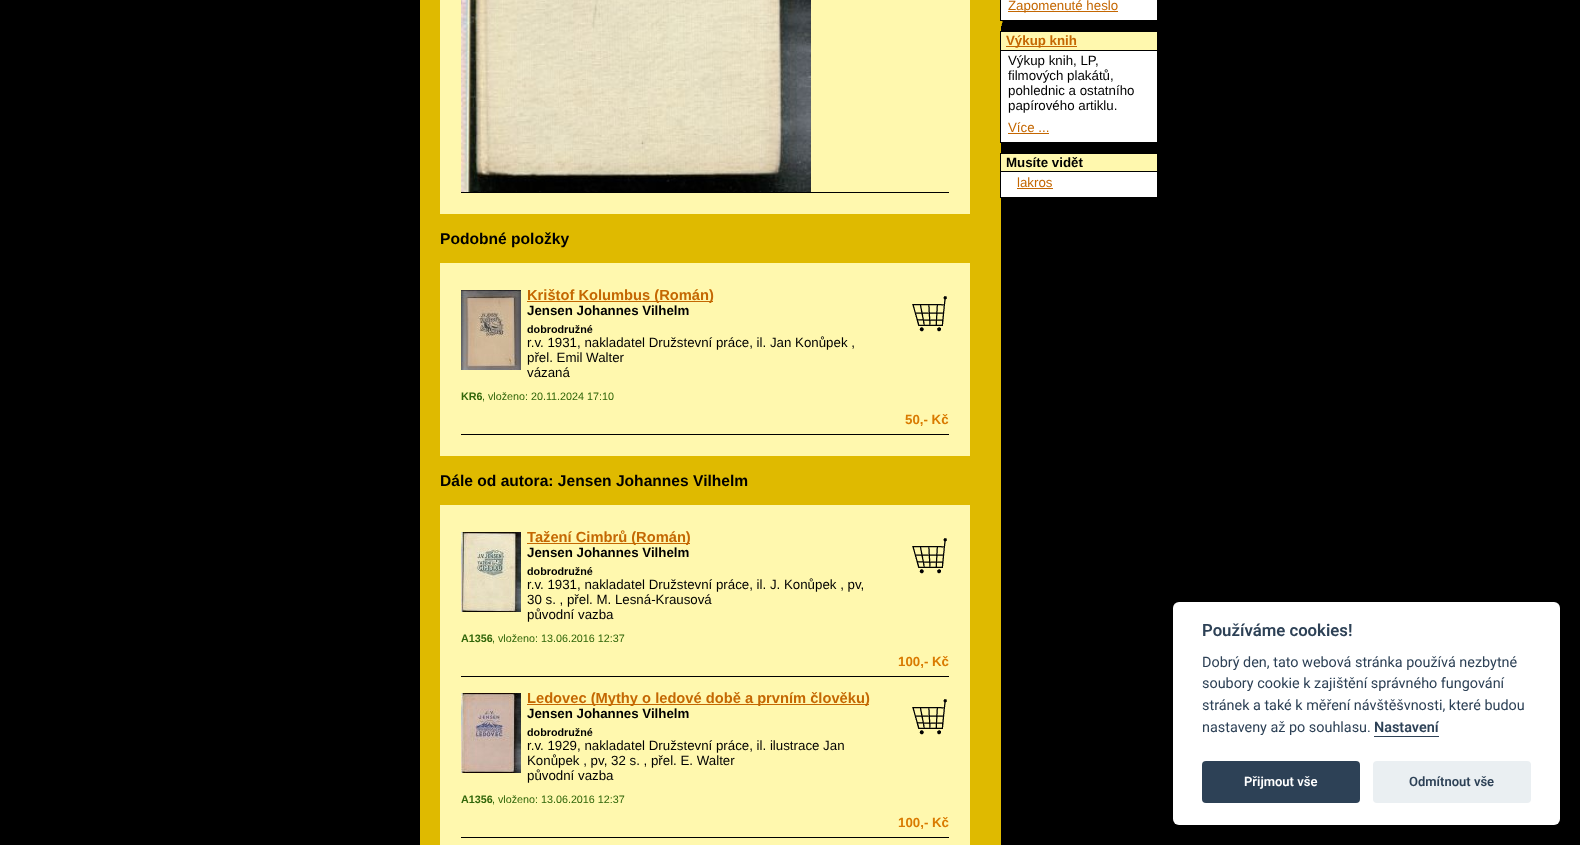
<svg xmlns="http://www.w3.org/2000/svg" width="1580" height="845">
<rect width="100%" height="100%" fill="#000"/>
<rect x="420" width="581" height="845" fill="#dfba00"/>
<image x="1001" y="21" width="7" height="5" href="media/1.png"/>
<rect x="1000.5" y="-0.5" width="157" height="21" fill="#fff" stroke="#000"/>
<rect x="1008" y="11" width="110" height="1" fill="#c46702"/>
<text x="1008" y="10" style="font-family:Liberation Sans;font-size:13.3px;fill:#c46702">Zapomenuté heslo</text>
<rect x="1001" y="51" width="156" height="91" fill="#fff"/>
<rect x="1000.5" y="31.5" width="157" height="111" fill="none" stroke="#000"/>
<rect x="1001" y="32" width="156" height="18" fill="#fff8ae"/>
<rect x="1006" y="46" width="71" height="1" fill="#c46702"/>
<text x="1006" y="45" style="font-family:Liberation Sans;font-size:13.3px;font-weight:bold;fill:#c46702">Výkup knih</text>
<text x="1008" y="65" style="font-family:Liberation Sans;font-size:13.3px;fill:#000">Výkup knih, LP,</text>
<text x="1008" y="80" style="font-family:Liberation Sans;font-size:13.3px;fill:#000">filmových plakátů,</text>
<text x="1008" y="95" style="font-family:Liberation Sans;font-size:13.3px;fill:#000">pohlednic a ostatního</text>
<text x="1008" y="110" style="font-family:Liberation Sans;font-size:13.3px;fill:#000">papírového artiklu.</text>
<text x="1008" y="132" style="font-family:Liberation Sans;font-size:13.3px;fill:#c46702">Více ...</text>
<rect x="1008" y="133" width="41" height="1" fill="#c46702"/>
<rect x="1001" y="172" width="156" height="25" fill="#fff"/>
<rect x="1000.5" y="153.5" width="157" height="44" fill="none" stroke="#000"/>
<rect x="1001" y="154" width="156" height="17" fill="#fff8ae"/>
<text x="1006" y="167" style="font-family:Liberation Sans;font-size:13.3px;font-weight:bold;fill:#000">Musíte vidět</text>
<text x="1017" y="187" style="font-family:Liberation Sans;font-size:13.3px;fill:#c46702">lakros</text>
<rect x="1017" y="188" width="36" height="1" fill="#c46702"/>
<rect x="440" width="530" height="214" fill="#fff8ae"/>
<rect x="461" y="192" width="488" height="1" fill="#000"/>
<image x="461" y="0" width="350" height="192" href="media/2.png"/>
<text x="440" y="244" style="font-family:Liberation Sans;font-size:15.6px;font-weight:bold;fill:#000">Podobné položky</text>
<rect x="440" y="263" width="530" height="193" fill="#fff8ae"/>
<rect x="461" y="434" width="488" height="1" fill="#000"/>
<image x="461" y="290" width="60" height="80" href="media/3.png"/>
<rect x="527" y="301" width="186" height="1" fill="#c46702"/>
<text x="527" y="300" style="font-family:Liberation Sans;font-size:14.7px;font-weight:bold;fill:#c46702">Krištof Kolumbus (Román)</text>
<image x="912" y="296" width="35" height="36" href="media/4.png"/>
<text x="527" y="315" style="font-family:Liberation Sans;font-size:13.3px;font-weight:bold;fill:#000">Jensen Johannes Vilhelm</text>
<text x="527" y="333" style="font-family:Liberation Sans;font-size:10.75px;font-weight:bold;fill:#000">dobrodružné</text>
<text x="527" y="347" style="font-family:Liberation Sans;font-size:13.3px;fill:#000">r.v. 1931, nakladatel Družstevní práce, il. Jan Konůpek ,</text>
<text x="527" y="362" style="font-family:Liberation Sans;font-size:13.3px;fill:#000">přel. Emil Walter</text>
<text x="527" y="377" style="font-family:Liberation Sans;font-size:13.3px;fill:#000">vázaná</text>
<text x="461" y="400" style="font-family:Liberation Sans;font-size:10.75px;font-weight:bold;fill:#31660a">KR6</text>
<text x="482" y="400" style="font-family:Liberation Sans;font-size:10.75px;fill:#31660a">, vloženo: 20.11.2024 17:10</text>
<text x="905" y="424" style="font-family:Liberation Sans;font-size:13.3px;font-weight:bold;fill:#d97a00">50,- Kč</text>
<text x="440" y="486" style="font-family:Liberation Sans;font-size:15.6px;font-weight:bold;fill:#000">Dále od autora: Jensen Johannes Vilhelm</text>
<rect x="440" y="505" width="530" height="340" fill="#fff8ae"/>
<rect x="461" y="676" width="488" height="1" fill="#000"/>
<image x="461" y="532" width="60" height="80" href="media/5.png"/>
<rect x="527" y="543" width="163" height="1" fill="#c46702"/>
<text x="527" y="542" style="font-family:Liberation Sans;font-size:14.7px;font-weight:bold;fill:#c46702">Tažení Cimbrů (Román)</text>
<image x="912" y="538" width="35" height="36" href="media/4.png"/>
<text x="527" y="557" style="font-family:Liberation Sans;font-size:13.3px;font-weight:bold;fill:#000">Jensen Johannes Vilhelm</text>
<text x="527" y="575" style="font-family:Liberation Sans;font-size:10.75px;font-weight:bold;fill:#000">dobrodružné</text>
<text x="527" y="589" style="font-family:Liberation Sans;font-size:13.3px;fill:#000">r.v. 1931, nakladatel Družstevní práce, il. J. Konůpek , pv,</text>
<text x="527" y="604" style="font-family:Liberation Sans;font-size:13.3px;fill:#000">30 s. , přel. M. Lesná-Krausová</text>
<text x="527" y="619" style="font-family:Liberation Sans;font-size:13.3px;fill:#000">původní vazba</text>
<text x="461" y="642" style="font-family:Liberation Sans;font-size:10.75px;font-weight:bold;fill:#31660a">A1356</text>
<text x="492" y="642" style="font-family:Liberation Sans;font-size:10.75px;fill:#31660a">, vloženo: 13.06.2016 12:37</text>
<text x="898" y="666" style="font-family:Liberation Sans;font-size:13.3px;font-weight:bold;fill:#d97a00">100,- Kč</text>
<rect x="461" y="837" width="488" height="1" fill="#000"/>
<image x="461" y="693" width="60" height="80" href="media/6.png"/>
<rect x="527" y="704" width="342" height="1" fill="#c46702"/>
<text x="527" y="703" style="font-family:Liberation Sans;font-size:14.7px;font-weight:bold;fill:#c46702">Ledovec (Mythy o ledové době a prvním člověku)</text>
<image x="912" y="699" width="35" height="36" href="media/4.png"/>
<text x="527" y="718" style="font-family:Liberation Sans;font-size:13.3px;font-weight:bold;fill:#000">Jensen Johannes Vilhelm</text>
<text x="527" y="736" style="font-family:Liberation Sans;font-size:10.75px;font-weight:bold;fill:#000">dobrodružné</text>
<text x="527" y="750" style="font-family:Liberation Sans;font-size:13.3px;fill:#000">r.v. 1929, nakladatel Družstevní práce, il. ilustrace Jan</text>
<text x="527" y="765" style="font-family:Liberation Sans;font-size:13.3px;fill:#000">Konůpek , pv, 32 s. , přel. E. Walter</text>
<text x="527" y="780" style="font-family:Liberation Sans;font-size:13.3px;fill:#000">původní vazba</text>
<text x="461" y="803" style="font-family:Liberation Sans;font-size:10.75px;font-weight:bold;fill:#31660a">A1356</text>
<text x="492" y="803" style="font-family:Liberation Sans;font-size:10.75px;fill:#31660a">, vloženo: 13.06.2016 12:37</text>
<text x="898" y="827" style="font-family:Liberation Sans;font-size:13.3px;font-weight:bold;fill:#d97a00">100,- Kč</text>
<rect x="1173" y="602" width="387" height="223" rx="6" fill="#fff"/>
<text x="1202" y="636" style="font-family:Roboto;font-size:16.75px;font-weight:600;fill:#2d4156">Používáme cookies!</text>
<text x="1202" y="667" style="font-family:Roboto;font-size:14.4px;fill:#2d4156">Dobrý den, tato webová stránka používá nezbytné</text>
<text x="1202" y="688" style="font-family:Roboto;font-size:14.4px;fill:#2d4156">soubory cookie k zajištění správného fungování</text>
<text x="1202" y="710" style="font-family:Roboto;font-size:14.4px;fill:#2d4156">stránek a také k měření návštěšvnosti, které budou</text>
<text x="1202" y="732" style="font-family:Roboto;font-size:14.4px;fill:#2d4156">nastaveny až po souhlasu.</text>
<text x="1374" y="732" style="font-family:Roboto;font-size:14.4px;font-weight:600;fill:#2d4156">Nastavení</text>
<rect x="1374" y="736" width="65" height="1" fill="#2d4156"/>
<rect x="1202" y="761" width="158" height="42" rx="4" fill="#2d4156"/>
<text x="1244" y="786" style="font-family:Roboto;font-size:13px;font-weight:600;fill:#fff">Přijmout vše</text>
<rect x="1373" y="761" width="158" height="42" rx="4" fill="#eaeff2"/>
<text x="1409" y="786" style="font-family:Roboto;font-size:13px;font-weight:600;fill:#2d4156">Odmítnout vše</text>
</svg>
